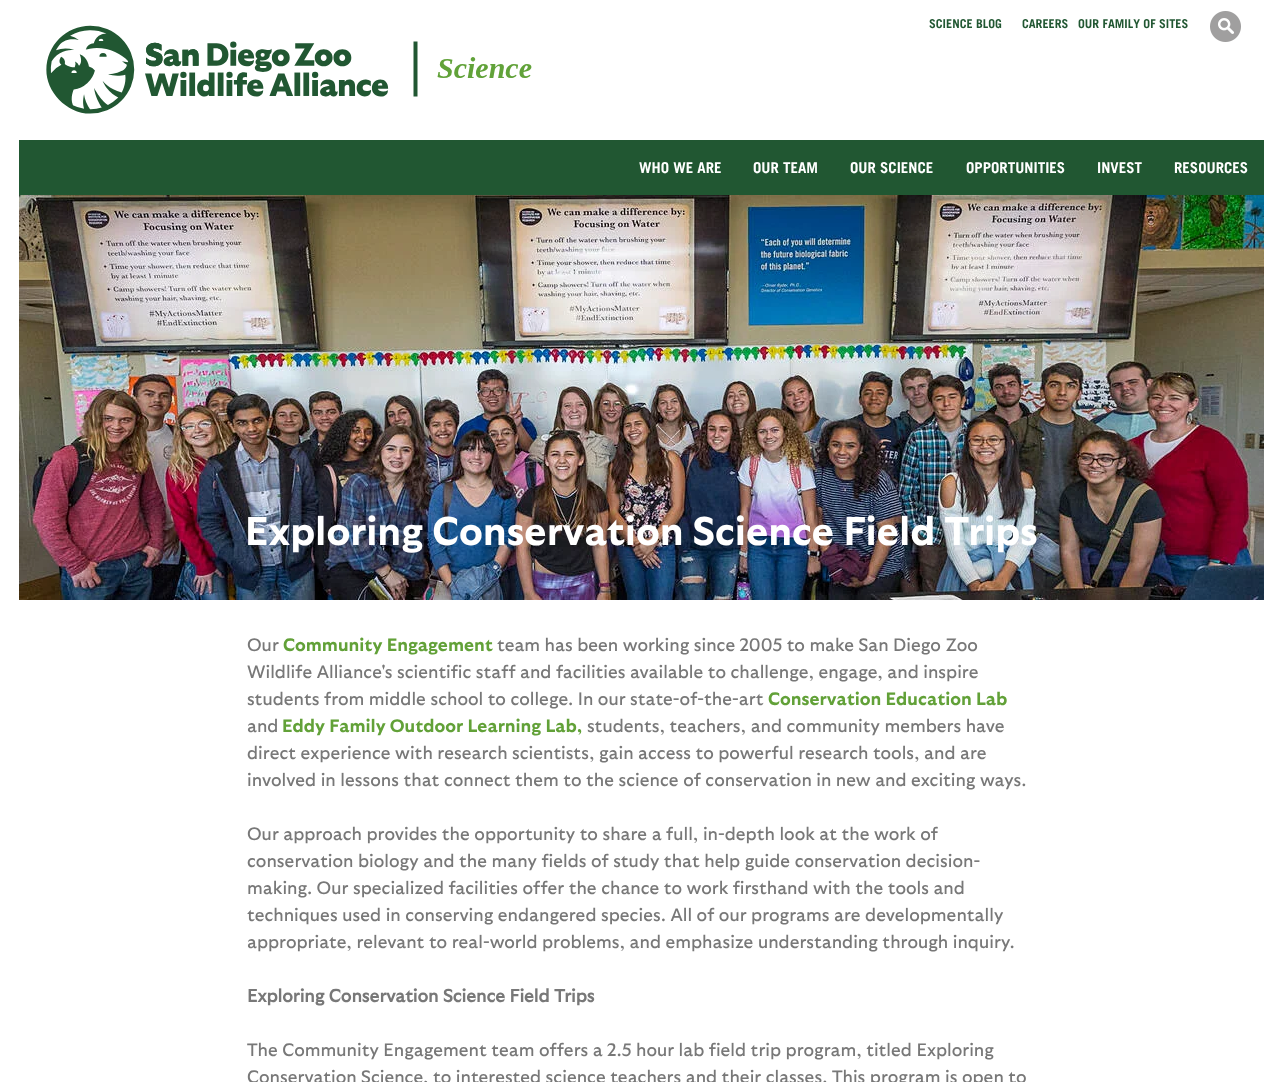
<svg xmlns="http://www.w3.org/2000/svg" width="1283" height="1082">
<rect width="100%" height="100%" fill="#fff"/>
<image x="46" y="25" width="486" height="89" href="media/1.png"/>
<text x="929" y="28" style="font-family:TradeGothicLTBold;font-size:12.25px;font-weight:bold;fill:#215732">SCIENCE BLOG</text>
<text x="1022" y="28" style="font-family:TradeGothicLTBold;font-size:12.25px;font-weight:bold;fill:#215732">CAREERS</text>
<text x="1078" y="28" style="font-family:TradeGothicLTBold;font-size:12.25px;font-weight:bold;fill:#215732">OUR FAMILY OF SITES</text>
<image x="1210" y="11" width="31" height="31" href="media/2.png"/>
<rect x="19" y="140" width="1245" height="55" fill="#215732"/>
<text x="639" y="173" style="font-family:TradeGothicLTBold;font-size:15px;font-weight:bold;fill:#fff">WHO WE ARE</text>
<text x="753" y="173" style="font-family:TradeGothicLTBold;font-size:15px;font-weight:bold;fill:#fff">OUR TEAM</text>
<text x="850" y="173" style="font-family:TradeGothicLTBold;font-size:15px;font-weight:bold;fill:#fff">OUR SCIENCE</text>
<text x="966" y="173" style="font-family:TradeGothicLTBold;font-size:15px;font-weight:bold;fill:#fff">OPPORTUNITIES</text>
<text x="1097" y="173" style="font-family:TradeGothicLTBold;font-size:15px;font-weight:bold;fill:#fff">INVEST</text>
<text x="1174" y="173" style="font-family:TradeGothicLTBold;font-size:15px;font-weight:bold;fill:#fff">RESOURCES</text>
<image x="19" y="195" width="1245" height="405" href="media/3.png"/>
<text x="245" y="545" style="font-family:'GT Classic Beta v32';font-size:39.9px;font-weight:bold;fill:#fff">Exploring Conservation Science Field Trips</text>
<text x="247" y="651" style="font-family:'GT Classic Beta v32';font-size:18px;fill:#787878">Our</text>
<text x="283" y="651" style="font-family:'GT Classic Beta v32';font-size:18px;font-weight:bold;fill:#62a138">Community Engagement</text>
<text x="497" y="651" style="font-family:'GT Classic Beta v32';font-size:18px;fill:#787878">team has been working since 2005 to make San Diego Zoo</text>
<text x="247" y="678" style="font-family:'GT Classic Beta v32';font-size:18px;fill:#787878">Wildlife Alliance's scientific staff and facilities available to challenge, engage, and inspire</text>
<text x="247" y="705" style="font-family:'GT Classic Beta v32';font-size:18px;fill:#787878">students from middle school to college. In our state-of-the-art</text>
<text x="768" y="705" style="font-family:'GT Classic Beta v32';font-size:18px;font-weight:bold;fill:#62a138">Conservation Education Lab</text>
<text x="247" y="732" style="font-family:'GT Classic Beta v32';font-size:18px;fill:#787878">and</text>
<text x="282" y="732" style="font-family:'GT Classic Beta v32';font-size:18px;font-weight:bold;fill:#62a138">Eddy Family Outdoor Learning Lab,</text>
<text x="587" y="732" style="font-family:'GT Classic Beta v32';font-size:18px;fill:#787878">students, teachers, and community members have</text>
<text x="247" y="759" style="font-family:'GT Classic Beta v32';font-size:18px;fill:#787878">direct experience with research scientists, gain access to powerful research tools, and are</text>
<text x="247" y="786" style="font-family:'GT Classic Beta v32';font-size:18px;fill:#787878">involved in lessons that connect them to the science of conservation in new and exciting ways.</text>
<text x="247" y="840" style="font-family:'GT Classic Beta v32';font-size:18px;fill:#787878">Our approach provides the opportunity to share a full, in-depth look at the work of</text>
<text x="247" y="867" style="font-family:'GT Classic Beta v32';font-size:18px;fill:#787878">conservation biology and the many fields of study that help guide conservation decision-</text>
<text x="247" y="894" style="font-family:'GT Classic Beta v32';font-size:18px;fill:#787878">making. Our specialized facilities offer the chance to work firsthand with the tools and</text>
<text x="247" y="921" style="font-family:'GT Classic Beta v32';font-size:18px;fill:#787878">techniques used in conserving endangered species. All of our programs are developmentally</text>
<text x="247" y="948" style="font-family:'GT Classic Beta v32';font-size:18px;fill:#787878">appropriate, relevant to real-world problems, and emphasize understanding through inquiry.</text>
<text x="247" y="1002" style="font-family:'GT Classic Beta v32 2';font-size:18px;font-weight:bold;fill:#787878">Exploring Conservation Science Field Trips</text>
<text x="247" y="1056" style="font-family:'GT Classic Beta v32';font-size:18px;fill:#787878">The Community Engagement team offers a 2.5 hour lab field trip program, titled Exploring</text>
<text x="247" y="1083" style="font-family:'GT Classic Beta v32';font-size:18px;fill:#787878">Conservation Science, to interested science teachers and their classes. This program is open to</text>
</svg>
